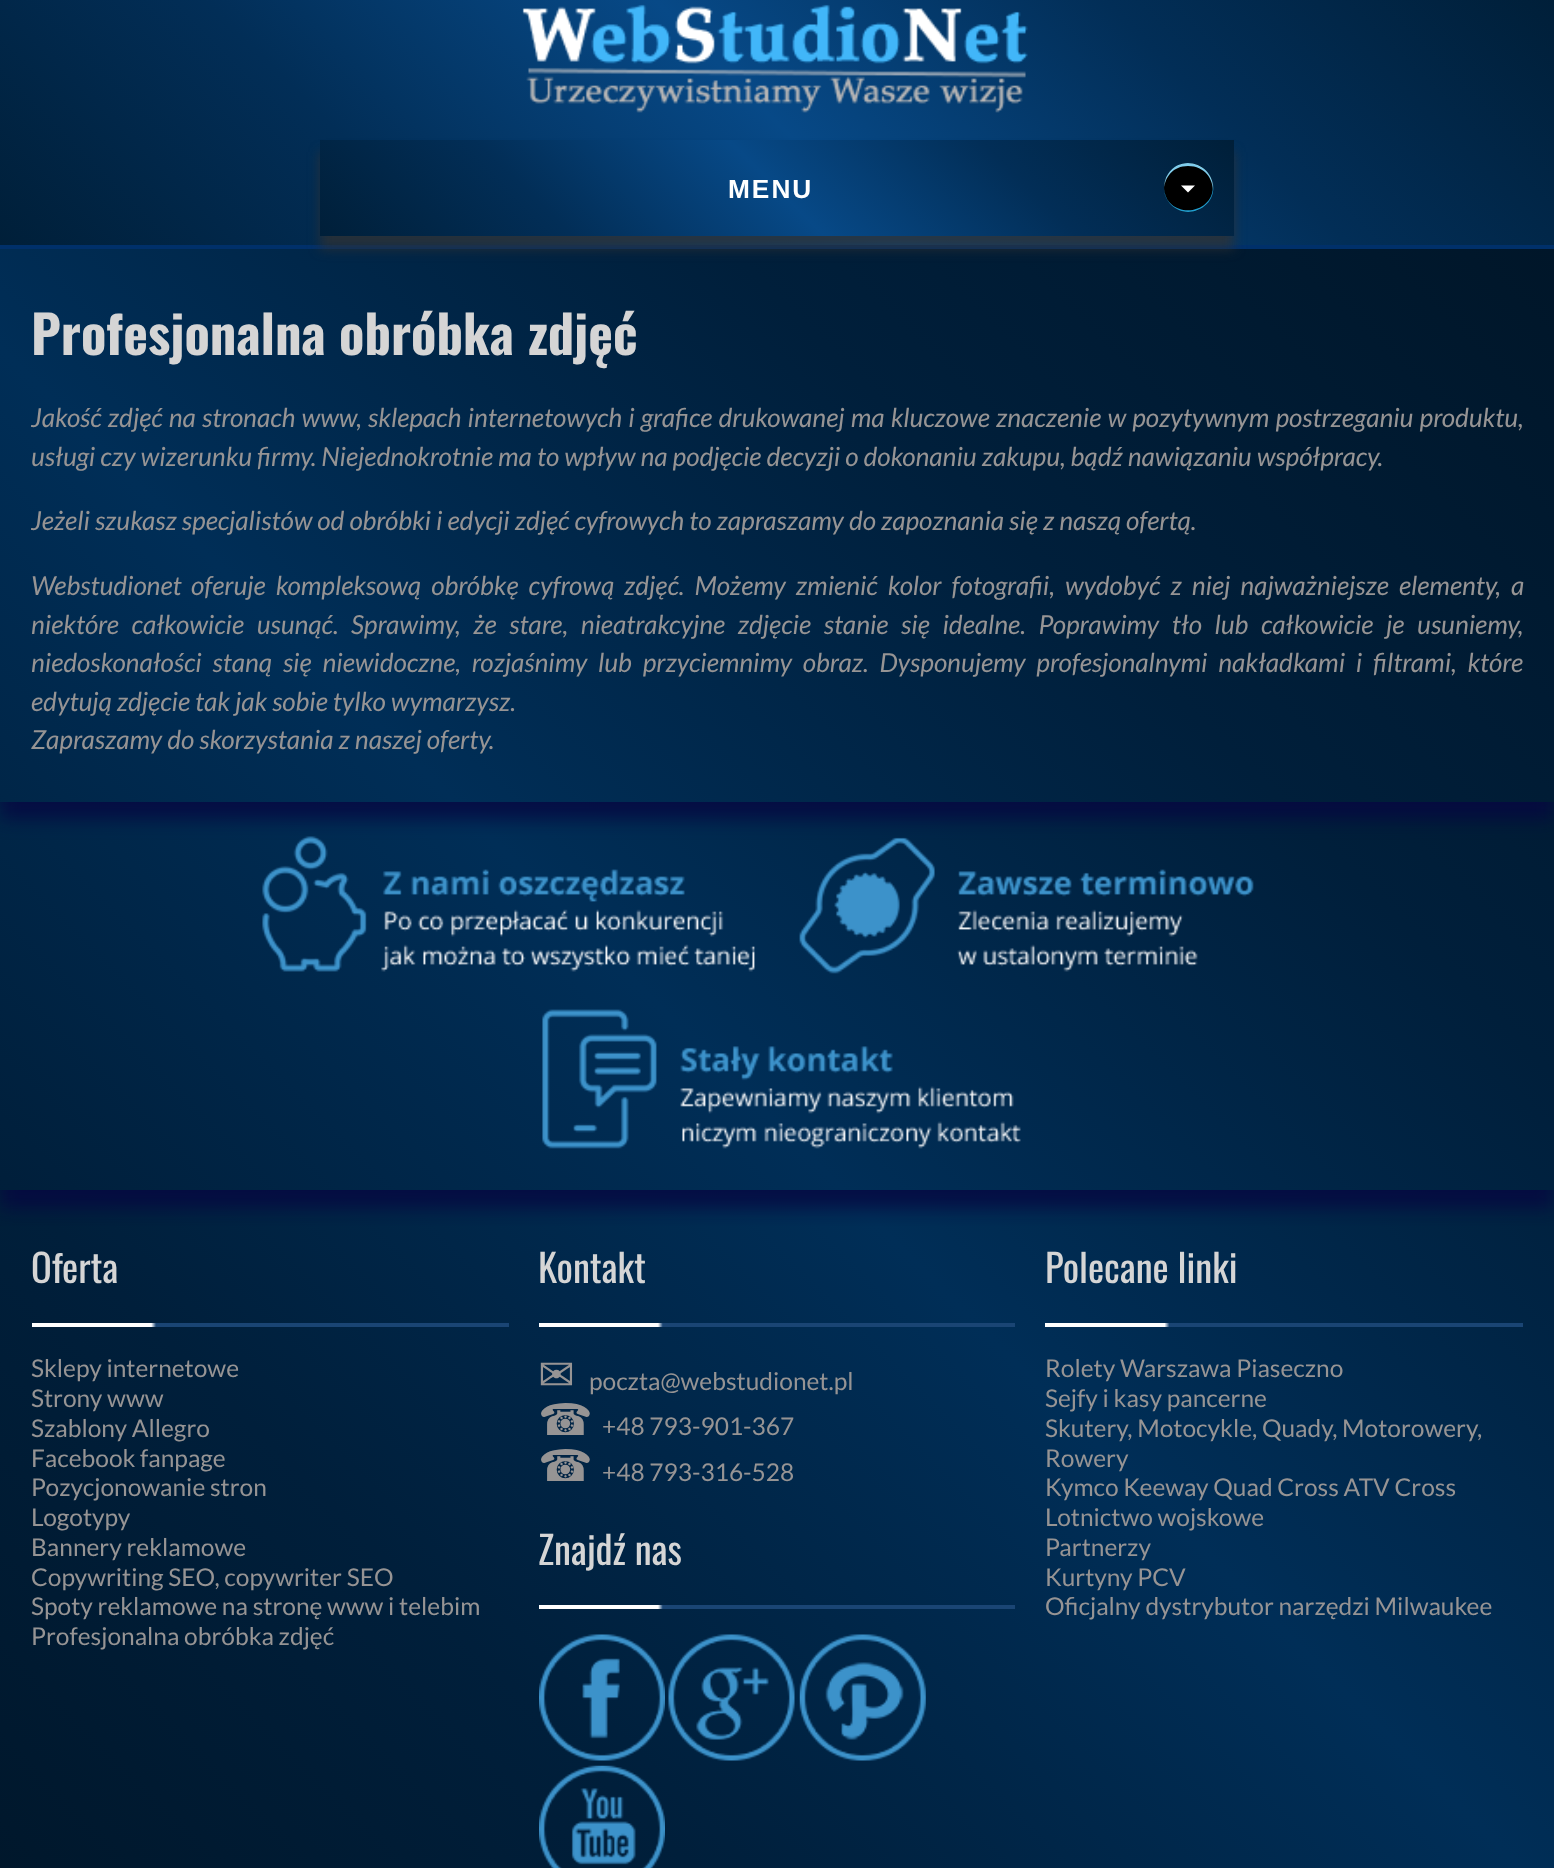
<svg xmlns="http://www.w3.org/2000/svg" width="1554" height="1868">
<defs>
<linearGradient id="g1" gradientUnits="userSpaceOnUse" x1="-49" y1="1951" x2="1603" y2="298"><stop offset="0" stop-color="#001629"/><stop offset="0.25" stop-color="#001f3b"/><stop offset="0.5" stop-color="#002e57"/><stop offset="0.75" stop-color="#001f3b"/><stop offset="1" stop-color="#001629"/></linearGradient>
<clipPath id="clip1"><path d="M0 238h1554v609h-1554zm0 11h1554v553h-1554z" clip-rule="evenodd"/></clipPath>
<linearGradient id="g2" gradientUnits="userSpaceOnUse" x1="327" y1="572" x2="1227" y2="-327"><stop offset="0" stop-color="#001f39"/><stop offset="0.25" stop-color="#022e57"/><stop offset="0.5" stop-color="#074987"/><stop offset="0.75" stop-color="#022e57"/><stop offset="1" stop-color="#001f39"/></linearGradient>
<linearGradient id="g3" gradientUnits="userSpaceOnUse" x1="525" y1="441" x2="1029" y2="-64"><stop offset="0" stop-color="#001f39"/><stop offset="0.25" stop-color="#022e57"/><stop offset="0.5" stop-color="#074987"/><stop offset="0.75" stop-color="#022e57"/><stop offset="1" stop-color="#001f39"/></linearGradient>
<clipPath id="clip2"><rect x="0" y="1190" width="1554" height="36"/></clipPath>
<linearGradient id="g4" gradientUnits="userSpaceOnUse" x1="509" y1="1325" x2="32" y2="1325"><stop offset="0" stop-color="#1a4574"/><stop offset="0.74" stop-color="#1a4574"/><stop offset="0.75" stop-color="#fff"/><stop offset="1" stop-color="#fff"/></linearGradient>
<linearGradient id="g5" gradientUnits="userSpaceOnUse" x1="1015" y1="1325" x2="539" y2="1325"><stop offset="0" stop-color="#1a4574"/><stop offset="0.74" stop-color="#1a4574"/><stop offset="0.75" stop-color="#fff"/><stop offset="1" stop-color="#fff"/></linearGradient>
<linearGradient id="g6" gradientUnits="userSpaceOnUse" x1="1015" y1="1607" x2="539" y2="1607"><stop offset="0" stop-color="#1a4574"/><stop offset="0.74" stop-color="#1a4574"/><stop offset="0.75" stop-color="#fff"/><stop offset="1" stop-color="#fff"/></linearGradient>
<linearGradient id="g7" gradientUnits="userSpaceOnUse" x1="1523" y1="1325" x2="1045" y2="1325"><stop offset="0" stop-color="#1a4574"/><stop offset="0.74" stop-color="#1a4574"/><stop offset="0.75" stop-color="#fff"/><stop offset="1" stop-color="#fff"/></linearGradient>
</defs>
<rect width="100%" height="100%" fill="#fff"/>
<rect y="249" width="1554" height="1619" fill="url(#g1)"/>
<g clip-path="url(#clip1)">
<rect y="266" width="1554" height="553" fill="#050641cc" filter="blur(9px)"/>
</g>
<rect width="1554" height="245" fill="url(#g2)"/>
<rect y="245" width="1554" height="4" fill="#00306a"/>
<image x="522" y="4" width="506" height="109" href="media/1.png"/>
<rect x="320" y="152" width="914" height="97" fill="#323232bf" filter="blur(6px)"/>
<rect x="320" y="140" width="914" height="96" fill="url(#g3)"/>
<text x="728" y="198" style="font-family:Liberation Sans;font-size:26.25px;font-weight:bold;letter-spacing:2px;fill:#fff">MENU</text>
<circle cx="1188.5" cy="187.5" r="24.5" fill="#000"/>
<path d="M1188 166c17 0 25 13 25 25c3-25-30-39-45-17c-3 4-4 10-4 15c1-12 9-23 24-23z" fill="#7fcceb"/>
<path d="M1213 184c2 33-48 36-49 3c0 5 1 10 4 14c15 22 49 8 45-17z" fill="#209ed0"/>
<path d="M1181 185.5h14l-7 7z" fill="#fff"/>
<text x="31" y="355" style="font-family:Oswald;font-size:52.5px;font-weight:bold;fill:#d5d5d5">Profesjonalna obróbka zdjęć</text>
<text x="31" y="427" word-spacing="1.1" style="font-family:Lato;font-size:26.25px;font-style:italic;fill:#969494">Jakość zdjęć na stronach www, sklepach internetowych i grafice drukowanej ma kluczowe znaczenie w pozytywnym postrzeganiu produktu,</text>
<text x="31" y="466" style="font-family:Lato;font-size:26.25px;font-style:italic;fill:#969494">usługi czy wizerunku firmy. Niejednokrotnie ma to wpływ na podjęcie decyzji o dokonaniu zakupu, bądź nawiązaniu współpracy.</text>
<text x="31" y="530" style="font-family:Lato;font-size:26.25px;font-style:italic;fill:#969494">Jeżeli szukasz specjalistów od obróbki i edycji zdjęć cyfrowych to zapraszamy do zapoznania się z naszą ofertą.</text>
<text x="31" y="595" style="font-family:Lato;font-size:26.25px;font-style:italic;fill:#969494">Webstudionet</text>
<text x="191" y="595" word-spacing="5" style="font-family:Lato;font-size:26.25px;font-style:italic;fill:#969494">oferuje kompleksową obróbkę cyfrową</text>
<text x="624" y="595" word-spacing="5" style="font-family:Lato;font-size:26.25px;font-style:italic;fill:#969494">zdjęć. Możemy zmienić kolor fotografii, wydobyć z niej najważniejsze elementy, a</text>
<text x="31" y="634" word-spacing="7.6" style="font-family:Lato;font-size:26.25px;font-style:italic;fill:#969494">niektóre całkowicie usunąć.</text>
<text x="351" y="634" word-spacing="7.6" style="font-family:Lato;font-size:26.25px;font-style:italic;fill:#969494">Sprawimy, że stare, nieatrakcyjne zdjęcie stanie się idealne. Poprawimy tło lub całkowicie je usuniemy,</text>
<text x="31" y="672" word-spacing="5.75" style="font-family:Lato;font-size:26.25px;font-style:italic;fill:#969494">niedoskonałości staną się niewidoczne, rozjaśnimy lub przyciemnimy obraz. Dysponujemy profesjonalnymi nakładkami i filtrami, które</text>
<text x="31" y="711" style="font-family:Lato;font-size:26.25px;font-style:italic;fill:#969494">edytują zdjęcie tak jak sobie tylko wymarzysz.</text>
<text x="31" y="749" style="font-family:Lato;font-size:26.25px;font-style:italic;fill:#969494">Zapraszamy do skorzystania z naszej oferty.</text>
<g clip-path="url(#clip2)">
<rect y="819" width="1554" height="389" fill="#050641cc" filter="blur(9px)"/>
</g>
<image x="262" y="836" width="493" height="136" href="media/2.png"/>
<image x="799" y="837" width="455" height="137" href="media/3.png"/>
<image x="542" y="1009" width="479" height="140" href="media/4.png"/>
<text x="31" y="1283" style="font-family:Oswald;font-size:38.5px;fill:#d5d5d5">Oferta</text>
<rect x="32" y="1323" width="477" height="4" fill="url(#g4)"/>
<text x="31" y="1377" style="font-family:Lato;font-size:24.5px;fill:#969494">Sklepy internetowe</text>
<text x="31" y="1407" style="font-family:Lato;font-size:24.5px;fill:#969494">Strony www</text>
<text x="31" y="1437" style="font-family:Lato;font-size:24.5px;fill:#969494">Szablony Allegro</text>
<text x="31" y="1467" style="font-family:Lato;font-size:24.5px;fill:#969494">Facebook fanpage</text>
<text x="31" y="1496" style="font-family:Lato;font-size:24.5px;fill:#969494">Pozycjonowanie stron</text>
<text x="31" y="1526" style="font-family:Lato;font-size:24.5px;fill:#969494">Logotypy</text>
<text x="31" y="1556" style="font-family:Lato;font-size:24.5px;fill:#969494">Bannery reklamowe</text>
<text x="31" y="1586" style="font-family:Lato;font-size:24.5px;fill:#969494">Copywriting SEO, copywriter SEO</text>
<text x="31" y="1615" style="font-family:Lato;font-size:24.5px;fill:#969494">Spoty reklamowe na stronę www i telebim</text>
<text x="31" y="1645" style="font-family:Lato;font-size:24.5px;fill:#969494">Profesjonalna obróbka zdjęć</text>
<text x="538" y="1283" style="font-family:Oswald;font-size:38.5px;fill:#d5d5d5">Kontakt</text>
<rect x="539" y="1323" width="476" height="4" fill="url(#g5)"/>
<text x="538" y="1390" style="font-family:DejaVu Sans;font-size:44px;fill:#969494">✉</text>
<text x="589" y="1390" style="font-family:Lato;font-size:24.5px;fill:#969494">poczta@webstudionet.pl</text>
<text x="538" y="1435" style="font-family:DejaVu Sans;font-size:44px;fill:#969494">☎</text>
<text x="602" y="1435" style="font-family:Lato;font-size:24.5px;fill:#969494">+48 793-901-367</text>
<text x="538" y="1481" style="font-family:DejaVu Sans;font-size:44px;fill:#969494">☎</text>
<text x="602" y="1481" style="font-family:Lato;font-size:24.5px;fill:#969494">+48 793-316-528</text>
<text x="538" y="1565" style="font-family:Oswald;font-size:38.5px;fill:#d5d5d5">Znajdź nas</text>
<rect x="539" y="1605" width="476" height="4" fill="url(#g6)"/>
<image x="539" y="1634" width="126" height="127" href="media/5.png"/>
<image x="668" y="1634" width="127" height="127" href="media/6.png"/>
<image x="799" y="1634" width="127" height="127" href="media/7.png"/>
<image x="539" y="1765" width="126" height="103" href="media/8.png"/>
<text x="1045" y="1283" style="font-family:Oswald;font-size:38.5px;fill:#d5d5d5">Polecane linki</text>
<rect x="1045" y="1323" width="478" height="4" fill="url(#g7)"/>
<text x="1045" y="1377" style="font-family:Lato;font-size:24.5px;fill:#969494">Rolety Warszawa Piaseczno</text>
<text x="1045" y="1407" style="font-family:Lato;font-size:24.5px;fill:#969494">Sejfy i kasy pancerne</text>
<text x="1045" y="1437" style="font-family:Lato;font-size:24.5px;fill:#969494">Skutery, Motocykle, Quady, Motorowery,</text>
<text x="1045" y="1467" style="font-family:Lato;font-size:24.5px;fill:#969494">Rowery</text>
<text x="1045" y="1496" style="font-family:Lato;font-size:24.5px;fill:#969494">Kymco Keeway Quad Cross ATV Cross</text>
<text x="1045" y="1526" style="font-family:Lato;font-size:24.5px;fill:#969494">Lotnictwo wojskowe</text>
<text x="1045" y="1556" style="font-family:Lato;font-size:24.5px;fill:#969494">Partnerzy</text>
<text x="1045" y="1586" style="font-family:Lato;font-size:24.5px;fill:#969494">Kurtyny PCV</text>
<text x="1045" y="1615" style="font-family:Lato;font-size:24.5px;fill:#969494">Oficjalny dystrybutor narzędzi Milwaukee</text>
</svg>
